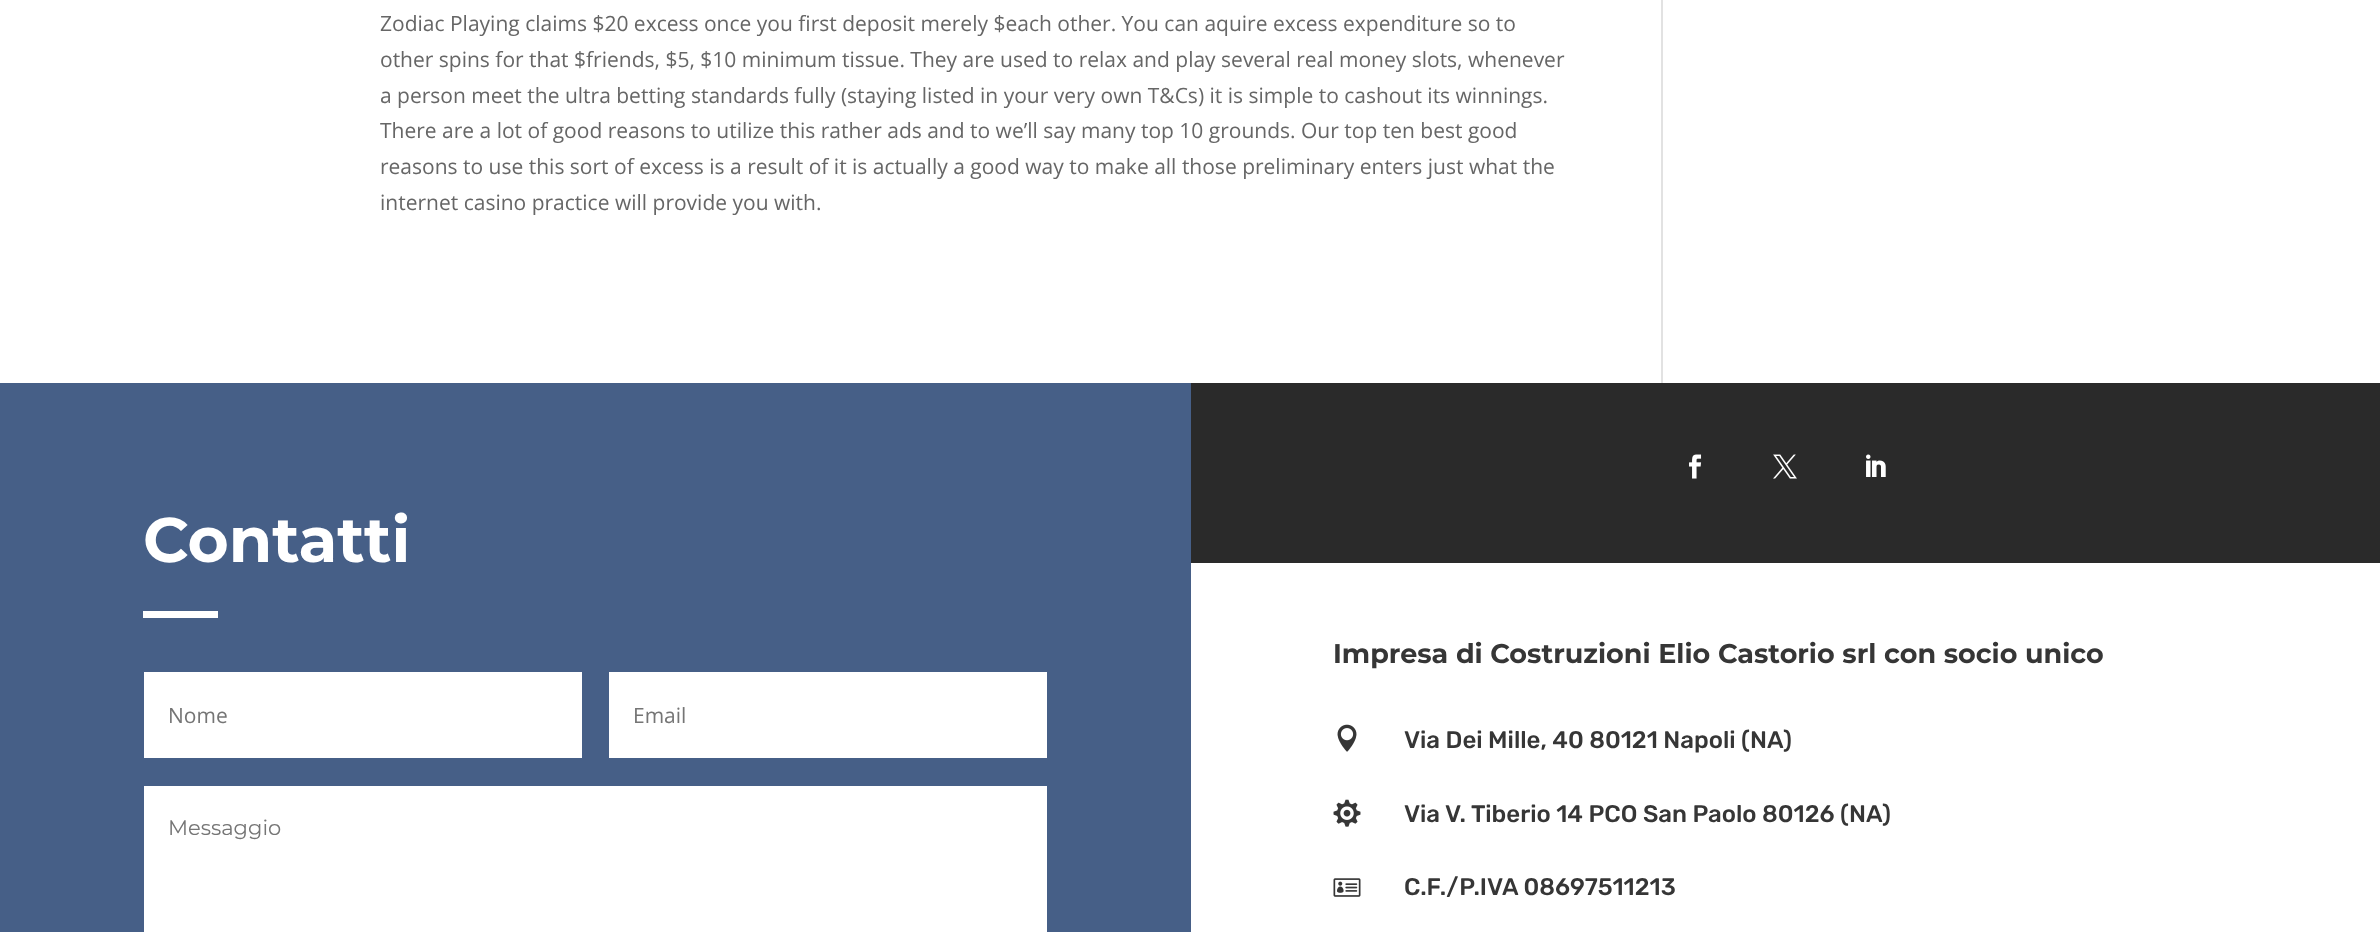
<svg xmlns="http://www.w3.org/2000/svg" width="2380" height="932">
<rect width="100%" height="100%" fill="#fff"/>
<text x="380" y="31" style="font-family:Open Sans;font-size:21px;fill:#666">Zodiac Playing claims $20 excess once you first deposit merely $each other. You can aquire excess expenditure so to</text>
<text x="380" y="67" style="font-family:Open Sans;font-size:21px;fill:#666">other spins for that $friends, $5, $10 minimum tissue. They are used to relax and play several real money slots, whenever</text>
<text x="380" y="103" style="font-family:Open Sans;font-size:21px;fill:#666">a person meet the ultra betting standards fully (staying listed in your very own T&amp;Cs) it is simple to cashout its winnings.</text>
<text x="380" y="138" style="font-family:Open Sans;font-size:21px;fill:#666">There are a lot of good reasons to utilize this rather ads and to we’ll say many top 10 grounds. Our top ten best good</text>
<text x="380" y="174" style="font-family:Open Sans;font-size:21px;fill:#666">reasons to use this sort of excess is a result of it is actually a good way to make all those preliminary enters just what the</text>
<text x="380" y="210" style="font-family:Open Sans;font-size:21px;fill:#666">internet casino practice will provide you with.</text>
<rect x="1661" width="2" height="383" fill="#e2e2e2"/>
<rect y="383" width="1191" height="549" fill="#465f87"/>
<text x="143" y="562" style="font-family:Montserrat;font-size:63px;font-weight:100;fill:#fff">Contatti</text>
<rect x="143" y="611" width="75" height="7" fill="#fff"/>
<rect x="144" y="672" width="438" height="86" fill="#fff"/>
<text x="168" y="723" style="font-family:Open Sans;font-size:21px;fill:#757575">Nome</text>
<rect x="609" y="672" width="438" height="86" fill="#fff"/>
<text x="633" y="723" style="font-family:Open Sans;font-size:21px;fill:#757575">Email</text>
<rect x="144" y="786" width="903" height="146" fill="#fff"/>
<text x="168" y="835" style="font-family:'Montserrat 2';font-size:21px;font-weight:100;fill:#757575">Messaggio</text>
<rect x="1191" y="383" width="1189" height="180" fill="#2a2a2a"/>
<image x="1689" y="454" width="13" height="25" href="media/1.png"/>
<image x="1773" y="454" width="24" height="25" href="media/2.png"/>
<image x="1866" y="454" width="20" height="23" href="media/3.png"/>
<text x="1333" y="663" style="font-family:Montserrat;font-size:27px;font-weight:100;fill:#363636">Impresa di Costruzioni Elio Castorio srl con socio unico</text>
<image x="1337" y="724" width="20" height="28" href="media/4.png"/>
<text x="1404" y="748" style="font-family:Rubik;font-size:24px;font-weight:300;fill:#363636">Via Dei Mille, 40 80121 Napoli (NA)</text>
<image x="1333" y="799" width="28" height="28" href="media/5.png"/>
<text x="1404" y="822" style="font-family:Rubik;font-size:24px;font-weight:300;fill:#363636">Via V. Tiberio 14 PCO San Paolo 80126 (NA)</text>
<image x="1333" y="878" width="28" height="19" href="media/6.png"/>
<text x="1404" y="895" style="font-family:Rubik;font-size:24px;font-weight:300;fill:#363636">C.F./P.IVA 08697511213</text>
</svg>
